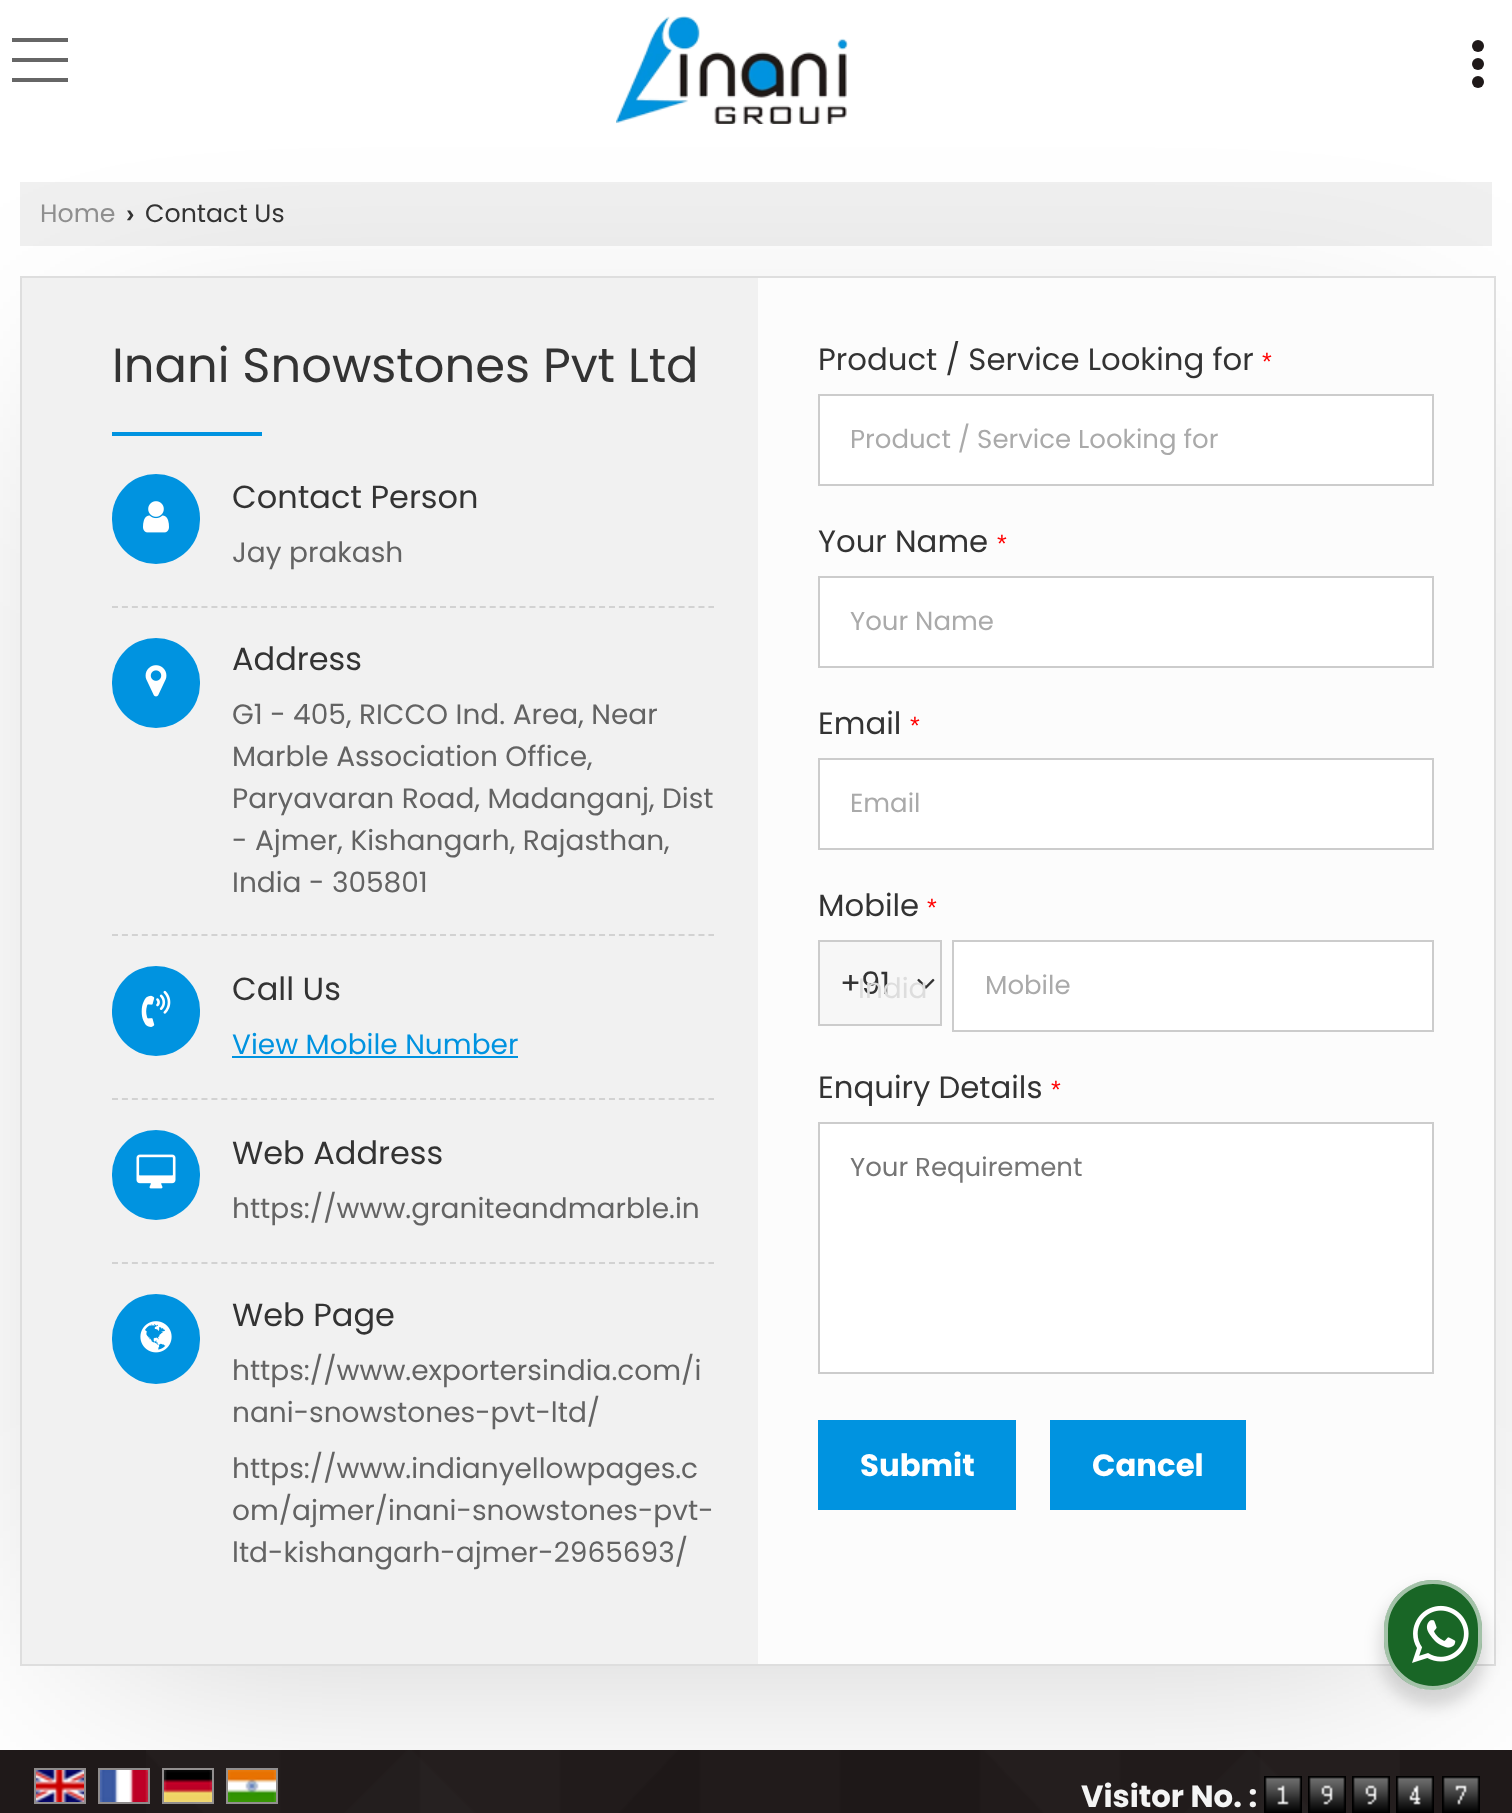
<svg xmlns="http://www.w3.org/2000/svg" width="1512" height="1813">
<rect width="100%" height="100%" fill="#fff"/>
<rect x="100" y="404" width="1316" height="1230" fill="#0000003d" filter="blur(120px)"/>
<image x="616" y="16" width="232" height="108" href="media/1.png"/>
<rect x="12" y="58" width="56" height="4" fill="#666"/>
<rect x="12" y="38" width="56" height="4" fill="#666"/>
<rect x="12" y="78" width="56" height="4" fill="#666"/>
<circle cx="1478" cy="64" r="6" fill="#1f1919"/>
<circle cx="1478" cy="46" r="6" fill="#1f1919"/>
<circle cx="1478" cy="82" r="6" fill="#1f1919"/>
<rect x="20" y="182" width="1472" height="64" fill="#0000000f"/>
<text x="40" y="222" style="font-family:Poppins;font-size:25.25px;fill:#8f8f8f">Home</text>
<text x="126" y="222" style="font-family:Liberation Sans;font-size:25.25px;font-weight:bold;fill:#333">›</text>
<text x="145" y="222" style="font-family:Poppins;font-size:25.25px;fill:#333">Contact Us</text>
<rect x="21" y="277" width="1474" height="1388" fill="none" stroke="#dedede" stroke-width="2"/>
<rect x="22" y="278" width="736" height="1386" fill="#f1f1f1"/>
<text x="112" y="382" style="font-family:Poppins;font-size:48px;fill:#333">Inani Snowstones Pvt Ltd</text>
<rect x="112" y="432" width="150" height="4" fill="#0093e0"/>
<rect x="112" y="474" width="88" height="90" rx="44" fill="#0093e0"/>
<image x="143" y="501" width="26" height="32" href="media/2.png"/>
<text x="232" y="508" style="font-family:Poppins;font-size:32px;fill:#333">Contact Person</text>
<text x="232" y="562" style="font-family:Poppins;font-size:28px;fill:#636363">Jay prakash</text>
<path d="M112 607h602" fill="none" stroke="#d2d2d2" stroke-width="2" stroke-dasharray="6 3.94"/>
<rect x="112" y="638" width="88" height="90" rx="44" fill="#0093e0"/>
<image x="145" y="665" width="22" height="32" href="media/3.png"/>
<text x="232" y="670" style="font-family:Poppins;font-size:32px;fill:#333">Address</text>
<text x="232" y="724" style="font-family:Poppins;font-size:28px;fill:#636363">G1 - 405, RICCO Ind. Area, Near</text>
<text x="232" y="766" style="font-family:Poppins;font-size:28px;fill:#636363">Marble Association Office,</text>
<text x="232" y="808" style="font-family:Poppins;font-size:28px;fill:#636363">Paryavaran Road, Madanganj, Dist</text>
<text x="232" y="850" style="font-family:Poppins;font-size:28px;fill:#636363">- Ajmer, Kishangarh, Rajasthan,</text>
<text x="232" y="892" style="font-family:Poppins;font-size:28px;fill:#636363">India - 305801</text>
<path d="M112 935h602" fill="none" stroke="#d2d2d2" stroke-width="2" stroke-dasharray="6 3.94"/>
<rect x="112" y="966" width="88" height="90" rx="44" fill="#0093e0"/>
<image x="141" y="990" width="30" height="37" href="media/4.png"/>
<text x="232" y="1000" style="font-family:Poppins;font-size:32px;fill:#333">Call Us</text>
<text x="232" y="1054" style="font-family:Poppins;font-size:28px;fill:#0093e0">View Mobile Number</text>
<rect x="232" y="1056" width="286" height="2" fill="#0093e0"/>
<path d="M112 1099h602" fill="none" stroke="#d2d2d2" stroke-width="2" stroke-dasharray="6 3.94"/>
<rect x="112" y="1130" width="88" height="90" rx="44" fill="#0093e0"/>
<image x="136" y="1154" width="40" height="35" href="media/5.png"/>
<text x="232" y="1164" style="font-family:Poppins;font-size:32px;fill:#333">Web Address</text>
<text x="232" y="1218" style="font-family:Poppins;font-size:28px;fill:#636363">https://www.graniteandmarble.in</text>
<path d="M112 1263h602" fill="none" stroke="#d2d2d2" stroke-width="2" stroke-dasharray="6 3.94"/>
<rect x="112" y="1294" width="88" height="90" rx="44" fill="#0093e0"/>
<image x="140" y="1321" width="32" height="32" href="media/6.png"/>
<text x="232" y="1326" style="font-family:Poppins;font-size:32px;fill:#333">Web Page</text>
<text x="232" y="1380" style="font-family:Poppins;font-size:28px;fill:#636363">https://www.exportersindia.com/i</text>
<text x="232" y="1422" style="font-family:Poppins;font-size:28px;fill:#636363">nani-snowstones-pvt-ltd/</text>
<text x="232" y="1478" style="font-family:Poppins;font-size:28px;fill:#636363">https://www.indianyellowpages.c</text>
<text x="232" y="1520" style="font-family:Poppins;font-size:28px;fill:#636363">om/ajmer/inani-snowstones-pvt-</text>
<text x="232" y="1562" style="font-family:Poppins;font-size:28px;fill:#636363">ltd-kishangarh-ajmer-2965693/</text>
<rect x="758" y="278" width="736" height="1386" fill="#fcfcfc"/>
<text x="818" y="370" style="font-family:Poppins;font-size:30.75px;fill:#333">Product / Service Looking for</text>
<text x="1262" y="370" style="font-family:Liberation Sans;font-size:25px;fill:#f00">*</text>
<rect x="819" y="395" width="614" height="90" fill="#fff" stroke="#ccc" stroke-width="2"/>
<text x="850" y="448" style="font-family:Poppins;font-size:26px;fill:#aaa">Product / Service Looking for</text>
<text x="818" y="552" style="font-family:Poppins;font-size:30.75px;fill:#333">Your Name</text>
<text x="997" y="552" style="font-family:Liberation Sans;font-size:25px;fill:#f00">*</text>
<rect x="819" y="577" width="614" height="90" fill="#fff" stroke="#ccc" stroke-width="2"/>
<text x="850" y="630" style="font-family:Poppins;font-size:26px;fill:#aaa">Your Name</text>
<text x="818" y="734" style="font-family:Poppins;font-size:30.75px;fill:#333">Email</text>
<text x="910" y="734" style="font-family:Liberation Sans;font-size:25px;fill:#f00">*</text>
<rect x="819" y="759" width="614" height="90" fill="#fff" stroke="#ccc" stroke-width="2"/>
<text x="850" y="812" style="font-family:Poppins;font-size:26px;fill:#aaa">Email</text>
<text x="818" y="916" style="font-family:Poppins;font-size:30.75px;fill:#333">Mobile</text>
<text x="927" y="916" style="font-family:Liberation Sans;font-size:25px;fill:#f00">*</text>
<rect x="819" y="941" width="122" height="84" fill="#f7f7f7" stroke="#ccc" stroke-width="2"/>
<text x="840" y="994" style="font-family:Poppins;font-size:30.75px;fill:#333">+91</text>
<image x="917" y="978" width="18" height="11" href="media/7.png"/>
<text x="858" y="998" style="font-family:Poppins;font-size:28px;fill:#ddd">India</text>
<rect x="953" y="941" width="480" height="90" fill="#fff" stroke="#ccc" stroke-width="2"/>
<text x="985" y="994" style="font-family:Poppins;font-size:26px;fill:#aaa">Mobile</text>
<text x="818" y="1098" style="font-family:Poppins;font-size:30.75px;fill:#333">Enquiry Details</text>
<text x="1051" y="1098" style="font-family:Liberation Sans;font-size:25px;fill:#f00">*</text>
<rect x="819" y="1123" width="614" height="250" fill="#fff" stroke="#ccc" stroke-width="2"/>
<text x="850" y="1176" style="font-family:Poppins;font-size:26px;fill:#757575">Your Requirement</text>
<rect x="818" y="1420" width="198" height="90" fill="#0093e0"/>
<text x="860" y="1476" style="font-family:Poppins;font-size:30.75px;font-weight:bold;fill:#fff">Submit</text>
<rect x="1050" y="1420" width="196" height="90" fill="#0093e0"/>
<text x="1092" y="1476" style="font-family:Poppins;font-size:30.75px;font-weight:bold;fill:#fff">Cancel</text>
<rect y="1750" width="1512" height="63" fill="#1f1919"/>
<image x="146" y="1750" width="1254" height="63" href="media/8.png"/>
<rect x="35" y="1769" width="50" height="34" fill="none" stroke="#8f8c8c" stroke-width="2"/>
<rect x="99" y="1769" width="50" height="34" fill="none" stroke="#ffffff80" stroke-width="2"/>
<rect x="163" y="1769" width="50" height="34" fill="none" stroke="#ffffff80" stroke-width="2"/>
<rect x="227" y="1769" width="50" height="34" fill="none" stroke="#928f8f" stroke-width="2"/>
<image x="36" y="1770" width="48" height="32" href="media/9.png"/>
<image x="100" y="1770" width="48" height="32" href="media/10.png"/>
<image x="164" y="1770" width="48" height="32" href="media/11.png"/>
<image x="228" y="1770" width="48" height="32" href="media/12.png"/>
<text x="1081" y="1807" style="font-family:Poppins;font-size:30.75px;font-weight:bold;fill:#f4f4f4">Visitor No. :</text>
<image x="1264" y="1776" width="38" height="37" href="media/13.png"/>
<image x="1308" y="1776" width="38" height="37" href="media/14.png"/>
<image x="1352" y="1776" width="38" height="37" href="media/14.png"/>
<image x="1396" y="1776" width="38" height="37" href="media/15.png"/>
<image x="1442" y="1776" width="38" height="37" href="media/16.png"/>
<rect x="1380" y="1588" width="106" height="118" rx="53" fill="#00000024" filter="blur(8px)"/>
<rect x="1384" y="1580" width="98" height="110" rx="49" fill="#196626"/>
<rect x="1386" y="1582" width="94" height="106" rx="47" fill="none" stroke="#ffffff99" stroke-width="4"/>
<image x="1412" y="1605" width="57" height="58" href="media/17.png"/>
</svg>
